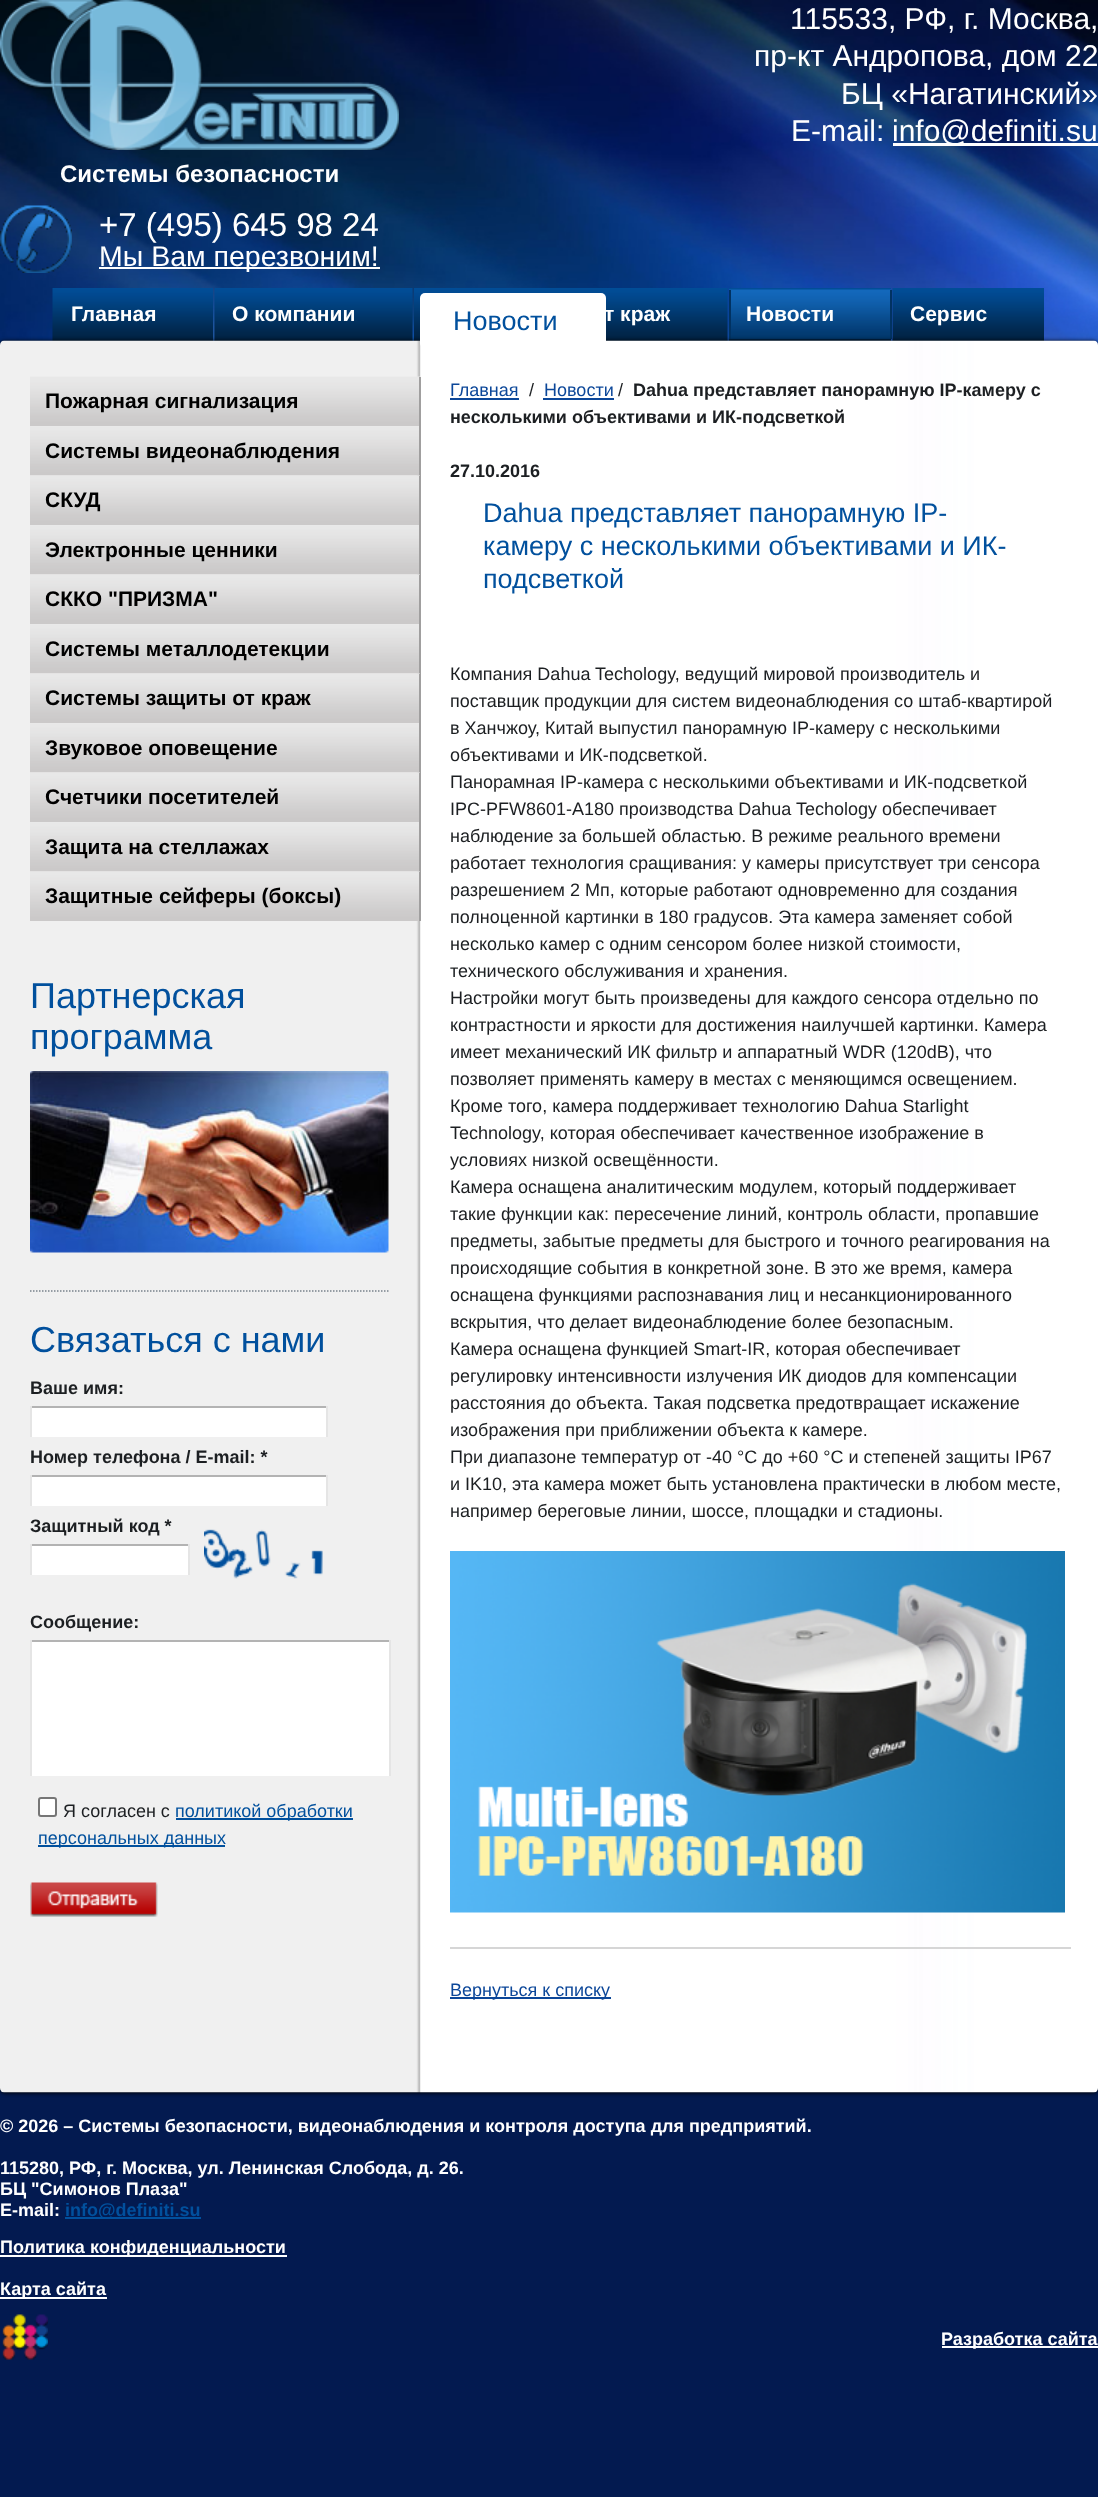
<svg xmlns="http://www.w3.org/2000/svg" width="1098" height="2497">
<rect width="100%" height="100%" fill="#031a50"/>
<image x="0" y="0" width="1098" height="345" href="media/1.png"/>
<text x="790" y="29" style="font-family:Liberation Sans;font-size:30px;fill:#fff">115533, РФ, г. Москва,</text>
<text x="754" y="66" style="font-family:Liberation Sans;font-size:30px;fill:#fff">пр-кт Андропова, дом 22</text>
<text x="841" y="104" style="font-family:Liberation Sans;font-size:30px;fill:#fff">БЦ «Нагатинский»</text>
<text x="791" y="141" style="font-family:Liberation Sans;font-size:30px;fill:#fff">E-mail:</text>
<rect x="893" y="143" width="205" height="3" fill="#fff"/>
<text x="892" y="141" style="font-family:Liberation Sans;font-size:30px;fill:#fff">info@definiti.su</text>
<image x="0" y="0" width="399" height="150" href="media/2.png"/>
<text x="60" y="182" style="font-family:Liberation Sans;font-size:24px;font-weight:bold;fill:#fff">Системы безопасности</text>
<image x="0" y="205" width="72" height="68" href="media/3.png"/>
<text x="99" y="236" style="font-family:Liberation Sans;font-size:33px;fill:#fff">+7 (495) 645 98 24</text>
<rect x="99" y="267" width="281" height="2" fill="#fff"/>
<text x="99" y="266" style="font-family:Liberation Sans;font-size:28.5px;fill:#fff">Мы Вам перезвоним!</text>
<image x="52" y="288" width="161" height="53" href="media/4.png"/>
<text x="71" y="321" style="font-family:Liberation Sans;font-size:21px;font-weight:bold;fill:#fff">Главная</text>
<image x="214" y="288" width="199" height="53" href="media/5.png"/>
<text x="232" y="321" style="font-family:Liberation Sans;font-size:21px;font-weight:bold;fill:#fff">О компании</text>
<image x="414" y="288" width="314" height="53" href="media/6.png"/>
<text x="604" y="321" style="font-family:Liberation Sans;font-size:21px;font-weight:bold;fill:#fff">т краж</text>
<image x="729" y="288" width="162" height="53" href="media/7.png"/>
<image x="729" y="289" width="162" height="50" href="media/8.png"/>
<rect x="890" y="290" width="2" height="49" fill="#013262"/>
<rect x="729" y="290" width="2" height="49" fill="#013262"/>
<text x="746" y="321" style="font-family:Liberation Sans;font-size:21px;font-weight:bold;fill:#fff">Новости</text>
<image x="892" y="288" width="152" height="53" href="media/9.png"/>
<text x="910" y="321" style="font-family:Liberation Sans;font-size:21px;font-weight:bold;fill:#fff">Сервис</text>
<rect y="341" width="1098" height="1752" rx="5" fill="#000" filter="blur(2px)"/>
<image x="0" y="340" width="1098" height="1753" href="media/10.png"/>
<rect x="420" y="293" width="186" height="55" rx="5" fill="#fff"/>
<text x="453" y="330" style="font-family:Liberation Sans;font-size:27px;fill:#01509d">Новости</text>
<image x="30" y="376" width="390" height="50" href="media/11.png"/>
<rect x="419" y="377" width="2" height="99" fill="#a09f9f"/>
<text x="45" y="408" style="font-family:Liberation Sans;font-size:21px;font-weight:bold;fill:#000">Пожарная сигнализация</text>
<image x="30" y="426" width="389" height="50" href="media/12.png"/>
<text x="45" y="458" style="font-family:Liberation Sans;font-size:21px;font-weight:bold;fill:#000">Системы видеонаблюдения</text>
<image x="30" y="475" width="390" height="50" href="media/13.png"/>
<rect x="419" y="476" width="2" height="99" fill="#a09f9f"/>
<text x="45" y="507" style="font-family:Liberation Sans;font-size:21px;font-weight:bold;fill:#000">СКУД</text>
<image x="30" y="525" width="389" height="50" href="media/12.png"/>
<text x="45" y="557" style="font-family:Liberation Sans;font-size:21px;font-weight:bold;fill:#000">Электронные ценники</text>
<image x="30" y="574" width="390" height="50" href="media/13.png"/>
<rect x="419" y="575" width="2" height="99" fill="#a09f9f"/>
<text x="45" y="606" style="font-family:Liberation Sans;font-size:21px;font-weight:bold;fill:#000">СККО "ПРИЗМА"</text>
<image x="30" y="624" width="389" height="50" href="media/12.png"/>
<text x="45" y="656" style="font-family:Liberation Sans;font-size:21px;font-weight:bold;fill:#000">Системы металлодетекции</text>
<image x="30" y="673" width="390" height="50" href="media/13.png"/>
<rect x="419" y="674" width="2" height="99" fill="#a09f9f"/>
<text x="45" y="705" style="font-family:Liberation Sans;font-size:21px;font-weight:bold;fill:#000">Системы защиты от краж</text>
<image x="30" y="723" width="389" height="50" href="media/12.png"/>
<text x="45" y="755" style="font-family:Liberation Sans;font-size:21px;font-weight:bold;fill:#000">Звуковое оповещение</text>
<image x="30" y="772" width="390" height="50" href="media/13.png"/>
<rect x="419" y="773" width="2" height="99" fill="#a09f9f"/>
<text x="45" y="804" style="font-family:Liberation Sans;font-size:21px;font-weight:bold;fill:#000">Счетчики посетителей</text>
<image x="30" y="822" width="389" height="50" href="media/12.png"/>
<text x="45" y="854" style="font-family:Liberation Sans;font-size:21px;font-weight:bold;fill:#000">Защита на стеллажах</text>
<image x="30" y="871" width="390" height="50" href="media/13.png"/>
<rect x="419" y="872" width="2" height="49" fill="#a09f9f"/>
<text x="45" y="903" style="font-family:Liberation Sans;font-size:21px;font-weight:bold;fill:#000">Защитные сейферы (боксы)</text>
<path d="M30 1291h360" fill="none" stroke="#77818a" stroke-width="1.5" stroke-dasharray="1.5 1.5"/>
<text x="30" y="1008" style="font-family:Liberation Sans;font-size:36px;fill:#01509d">Партнерская</text>
<text x="30" y="1049" style="font-family:Liberation Sans;font-size:36px;fill:#01509d">программа</text>
<image x="30" y="1071" width="359" height="182" href="media/14.png"/>
<text x="30" y="1352" style="font-family:Liberation Sans;font-size:36px;fill:#01509d">Связаться с нами</text>
<text x="30" y="1394" style="font-family:Liberation Sans;font-size:18px;font-weight:bold;fill:#1c1f22">Ваше имя:</text>
<rect x="32" y="1408" width="294" height="29" fill="#fff"/>
<rect x="30" y="1406" width="297" height="2" fill="#b3b3b3"/>
<rect x="326" y="1406" width="2" height="31" fill="#e5e5e5"/>
<rect x="30" y="1406" width="2" height="31" fill="#e5e5e5"/>
<text x="30" y="1463" style="font-family:Liberation Sans;font-size:18px;font-weight:bold;fill:#1c1f22">Номер телефона / E-mail: *</text>
<rect x="32" y="1477" width="294" height="29" fill="#fff"/>
<rect x="30" y="1475" width="297" height="2" fill="#b3b3b3"/>
<rect x="326" y="1475" width="2" height="31" fill="#e5e5e5"/>
<rect x="30" y="1475" width="2" height="31" fill="#e5e5e5"/>
<text x="30" y="1532" style="font-family:Liberation Sans;font-size:18px;font-weight:bold;fill:#1c1f22">Защитный код *</text>
<rect x="32" y="1546" width="156" height="29" fill="#fff"/>
<rect x="30" y="1544" width="159" height="2" fill="#b3b3b3"/>
<rect x="188" y="1544" width="2" height="31" fill="#e5e5e5"/>
<rect x="30" y="1544" width="2" height="31" fill="#e5e5e5"/>
<image x="204" y="1529" width="119" height="50" href="media/15.png"/>
<text x="30" y="1628" style="font-family:Liberation Sans;font-size:18px;font-weight:bold;fill:#1c1f22">Сообщение:</text>
<rect x="32" y="1642" width="357" height="134" fill="#fff"/>
<rect x="30" y="1640" width="360" height="2" fill="#b3b3b3"/>
<rect x="389" y="1640" width="2" height="136" fill="#e5e5e5"/>
<rect x="30" y="1640" width="2" height="136" fill="#e5e5e5"/>
<rect x="39" y="1798" width="17" height="18" rx="2" fill="#fff" stroke="#767676" stroke-width="2"/>
<text x="63" y="1817" style="font-family:Liberation Sans;font-size:18px;fill:#1c1f22">Я согласен с</text>
<rect x="176" y="1818" width="177" height="2" fill="#01509d"/>
<text x="175" y="1817" style="font-family:Liberation Sans;font-size:18px;fill:#01509d">политикой обработки</text>
<rect x="38" y="1845" width="187" height="2" fill="#01509d"/>
<text x="38" y="1844" style="font-family:Liberation Sans;font-size:18px;fill:#01509d">персональных данных</text>
<image x="30" y="1882" width="128" height="35" href="media/16.png"/>
<text x="450" y="396" style="font-family:Liberation Sans;font-size:18px;fill:#0c4799">Главная</text>
<rect x="450" y="398" width="69" height="2" fill="#0c4799"/>
<text x="529" y="396" style="font-family:Liberation Sans;font-size:18px;fill:#1c1f22">/</text>
<text x="544" y="396" style="font-family:Liberation Sans;font-size:18px;fill:#0c4799">Новости</text>
<rect x="543" y="398" width="71" height="2" fill="#0c4799"/>
<text x="618" y="396" style="font-family:Liberation Sans;font-size:18px;fill:#1c1f22">/</text>
<text x="633" y="396" style="font-family:Liberation Sans;font-size:18px;font-weight:bold;fill:#1c1f22">Dahua представляет панорамную IP-камеру с</text>
<text x="450" y="423" style="font-family:Liberation Sans;font-size:18px;font-weight:bold;fill:#1c1f22">несколькими объективами и ИК-подсветкой</text>
<text x="450" y="477" style="font-family:Liberation Sans;font-size:18px;font-weight:bold;fill:#1c1f22">27.10.2016</text>
<text x="483" y="522" style="font-family:Liberation Sans;font-size:27px;fill:#01509d">Dahua представляет панорамную IP-</text>
<text x="483" y="555" style="font-family:Liberation Sans;font-size:27px;fill:#01509d">камеру с несколькими объективами и ИК-</text>
<text x="483" y="588" style="font-family:Liberation Sans;font-size:27px;fill:#01509d">подсветкой</text>
<text x="450" y="680" style="font-family:Liberation Sans;font-size:18px;fill:#1c1f22">Компания Dahua Techology, ведущий мировой производитель и</text>
<text x="450" y="707" style="font-family:Liberation Sans;font-size:18px;fill:#1c1f22">поставщик продукции для систем видеонаблюдения со штаб-квартирой</text>
<text x="450" y="734" style="font-family:Liberation Sans;font-size:18px;fill:#1c1f22">в Ханчжоу, Китай выпустил панорамную IP-камеру с несколькими</text>
<text x="450" y="761" style="font-family:Liberation Sans;font-size:18px;fill:#1c1f22">объективами и ИК-подсветкой.</text>
<text x="450" y="788" style="font-family:Liberation Sans;font-size:18px;fill:#1c1f22">Панорамная IP-камера с несколькими объективами и ИК-подсветкой</text>
<text x="450" y="815" style="font-family:Liberation Sans;font-size:18px;fill:#1c1f22">IPC-PFW8601-A180 производства Dahua Techology обеспечивает</text>
<text x="450" y="842" style="font-family:Liberation Sans;font-size:18px;fill:#1c1f22">наблюдение за большей областью. В режиме реального времени</text>
<text x="450" y="869" style="font-family:Liberation Sans;font-size:18px;fill:#1c1f22">работает технология сращивания: у камеры присутствует три сенсора</text>
<text x="450" y="896" style="font-family:Liberation Sans;font-size:18px;fill:#1c1f22">разрешением 2 Мп, которые работают одновременно для создания</text>
<text x="450" y="923" style="font-family:Liberation Sans;font-size:18px;fill:#1c1f22">полноценной картинки в 180 градусов. Эта камера заменяет собой</text>
<text x="450" y="950" style="font-family:Liberation Sans;font-size:18px;fill:#1c1f22">несколько камер с одним сенсором более низкой стоимости,</text>
<text x="450" y="977" style="font-family:Liberation Sans;font-size:18px;fill:#1c1f22">технического обслуживания и хранения.</text>
<text x="450" y="1004" style="font-family:Liberation Sans;font-size:18px;fill:#1c1f22">Настройки могут быть произведены для каждого сенсора отдельно по</text>
<text x="450" y="1031" style="font-family:Liberation Sans;font-size:18px;fill:#1c1f22">контрастности и яркости для достижения наилучшей картинки. Камера</text>
<text x="450" y="1058" style="font-family:Liberation Sans;font-size:18px;fill:#1c1f22">имеет механический ИК фильтр и аппаратный WDR (120dB), что</text>
<text x="450" y="1085" style="font-family:Liberation Sans;font-size:18px;fill:#1c1f22">позволяет применять камеру в местах с меняющимся освещением.</text>
<text x="450" y="1112" style="font-family:Liberation Sans;font-size:18px;fill:#1c1f22">Кроме того, камера поддерживает технологию Dahua Starlight</text>
<text x="450" y="1139" style="font-family:Liberation Sans;font-size:18px;fill:#1c1f22">Technology, которая обеспечивает качественное изображение в</text>
<text x="450" y="1166" style="font-family:Liberation Sans;font-size:18px;fill:#1c1f22">условиях низкой освещённости.</text>
<text x="450" y="1193" style="font-family:Liberation Sans;font-size:18px;fill:#1c1f22">Камера оснащена аналитическим модулем, который поддерживает</text>
<text x="450" y="1220" style="font-family:Liberation Sans;font-size:18px;fill:#1c1f22">такие функции как: пересечение линий, контроль области, пропавшие</text>
<text x="450" y="1247" style="font-family:Liberation Sans;font-size:18px;fill:#1c1f22">предметы, забытые предметы для быстрого и точного реагирования на</text>
<text x="450" y="1274" style="font-family:Liberation Sans;font-size:18px;fill:#1c1f22">происходящие события в конкретной зоне. В это же время, камера</text>
<text x="450" y="1301" style="font-family:Liberation Sans;font-size:18px;fill:#1c1f22">оснащена функциями распознавания лиц и несанкционированного</text>
<text x="450" y="1328" style="font-family:Liberation Sans;font-size:18px;fill:#1c1f22">вскрытия, что делает видеонаблюдение более безопасным.</text>
<text x="450" y="1355" style="font-family:Liberation Sans;font-size:18px;fill:#1c1f22">Камера оснащена функцией Smart-IR, которая обеспечивает</text>
<text x="450" y="1382" style="font-family:Liberation Sans;font-size:18px;fill:#1c1f22">регулировку интенсивности излучения ИК диодов для компенсации</text>
<text x="450" y="1409" style="font-family:Liberation Sans;font-size:18px;fill:#1c1f22">расстояния до объекта. Такая подсветка предотвращает искажение</text>
<text x="450" y="1436" style="font-family:Liberation Sans;font-size:18px;fill:#1c1f22">изображения при приближении объекта к камере.</text>
<text x="450" y="1463" style="font-family:Liberation Sans;font-size:18px;fill:#1c1f22">При диапазоне температур от -40 °C до +60 °C и степеней защиты IP67</text>
<text x="450" y="1490" style="font-family:Liberation Sans;font-size:18px;fill:#1c1f22">и IK10, эта камера может быть установлена практически в любом месте,</text>
<text x="450" y="1517" style="font-family:Liberation Sans;font-size:18px;fill:#1c1f22">например береговые линии, шоссе, площадки и стадионы.</text>
<image x="450" y="1551" width="615" height="362" href="media/17.png"/>
<rect x="450" y="1947" width="621" height="2" fill="#d6d6d6"/>
<rect x="450" y="1997" width="161" height="2" fill="#0c4799"/>
<text x="450" y="1996" style="font-family:Liberation Sans;font-size:18px;fill:#0c4799">Вернуться к списку</text>
<text x="0" y="2132" style="font-family:Liberation Sans;font-size:18px;font-weight:bold;fill:#fff">© 2026 – Системы безопасности, видеонаблюдения и контроля доступа для предприятий.</text>
<text x="0" y="2174" style="font-family:Liberation Sans;font-size:18px;font-weight:bold;fill:#fff">115280, РФ, г. Москва, ул. Ленинская Слобода, д. 26.</text>
<text x="0" y="2195" style="font-family:Liberation Sans;font-size:18px;font-weight:bold;fill:#fff">БЦ "Симонов Плаза"</text>
<text x="0" y="2216" style="font-family:Liberation Sans;font-size:18px;font-weight:bold;fill:#fff">E-mail:</text>
<rect x="65" y="2217" width="136" height="2" fill="#01509d"/>
<text x="65" y="2216" style="font-family:Liberation Sans;font-size:18px;font-weight:bold;fill:#01509d">info@definiti.su</text>
<rect y="2255" width="287" height="2" fill="#fff"/>
<text x="0" y="2253" style="font-family:Liberation Sans;font-size:18px;font-weight:bold;fill:#fff">Политика конфиденциальности</text>
<rect y="2297" width="107" height="2" fill="#fff"/>
<text x="0" y="2295" style="font-family:Liberation Sans;font-size:18px;font-weight:bold;fill:#fff">Карта сайта</text>
<image x="2" y="2314" width="46" height="46" href="media/18.png"/>
<rect x="942" y="2346" width="156" height="2" fill="#fff"/>
<text x="941" y="2345" style="font-family:Liberation Sans;font-size:18px;font-weight:bold;fill:#fff">Разработка сайта</text>
</svg>
